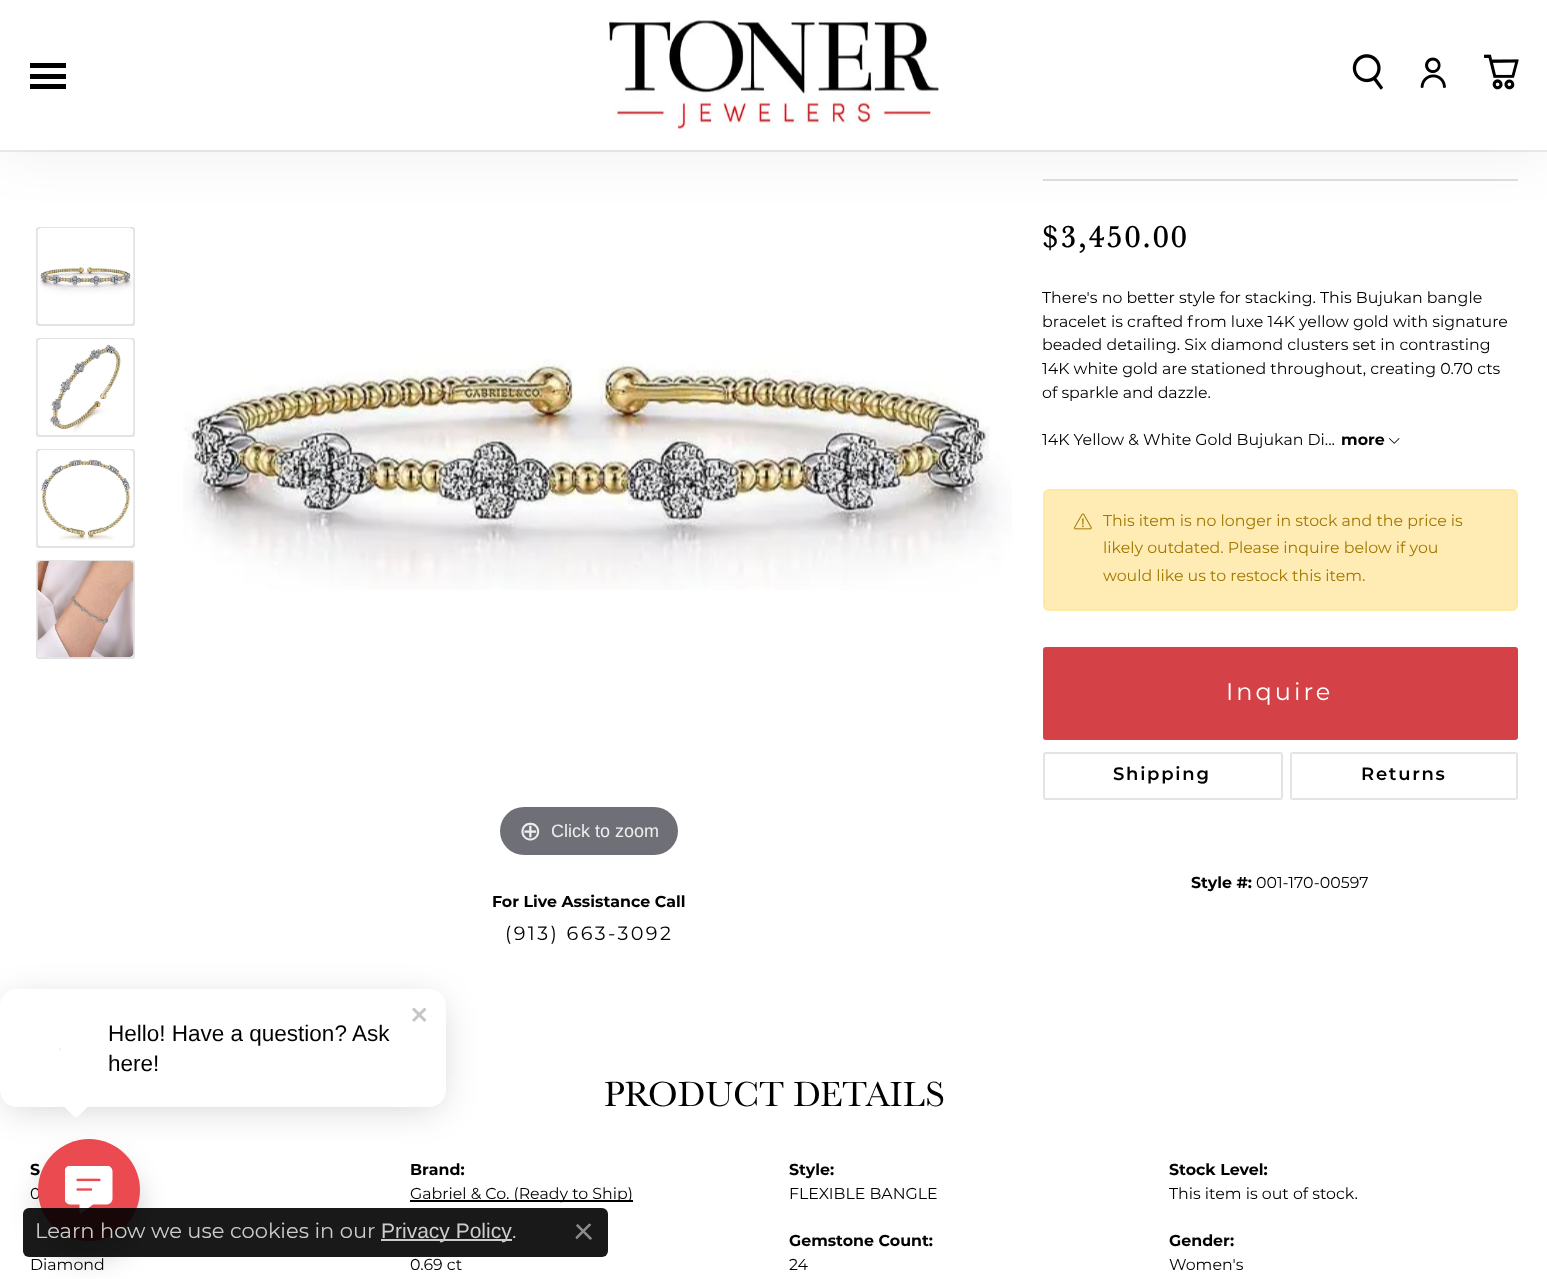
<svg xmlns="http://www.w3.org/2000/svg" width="1547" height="1279">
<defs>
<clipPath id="clip1"><rect x="60" y="1103" width="33" height="15"/></clipPath>
</defs>
<rect width="100%" height="100%" fill="#fff"/>
<rect x="36" y="227" width="99" height="99" rx="3" fill="#f5f5f5"/>
<rect x="37" y="228" width="97" height="97" rx="2" fill="none" stroke="#00000012" stroke-width="2"/>
<image x="37" y="228" width="97" height="96" href="media/5.png"/>
<rect x="1043" y="179" width="475" height="2" fill="#dfdfdf"/>
<rect width="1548" height="150" fill="#00000012" filter="blur(30px)"/>
<rect x="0" y="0" width="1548" height="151" fill="none" stroke="#00000012" stroke-width="2"/>
<rect width="1547" height="150" fill="#fff"/>
<rect x="30" y="63" width="36" height="5" fill="#000"/>
<rect x="30" y="74" width="36" height="5" fill="#000"/>
<rect x="30" y="84" width="36" height="5" fill="#000"/>
<image x="609" y="20" width="330" height="110" href="media/1.png"/>
<image x="1352" y="54" width="31" height="36" href="media/2.png"/>
<image x="1420" y="57" width="26" height="31" href="media/3.png"/>
<image x="1484" y="54" width="35" height="36" href="media/4.png"/>
<rect x="36" y="338" width="99" height="99" rx="3" fill="#f5f5f5"/>
<rect x="37" y="339" width="97" height="97" rx="2" fill="none" stroke="#00000012" stroke-width="2"/>
<image x="37" y="339" width="97" height="96" href="media/6.png"/>
<rect x="36" y="449" width="99" height="99" rx="3" fill="#f5f5f5"/>
<rect x="37" y="450" width="97" height="97" rx="2" fill="none" stroke="#00000012" stroke-width="2"/>
<image x="37" y="450" width="97" height="96" href="media/7.png"/>
<rect x="36" y="560" width="99" height="99" rx="3" fill="#f5f5f5"/>
<rect x="37" y="561" width="97" height="97" rx="2" fill="none" stroke="#00000012" stroke-width="2"/>
<image x="37" y="561" width="97" height="96" href="media/8.png"/>
<image x="183" y="359" width="829" height="231" href="media/9.png"/>
<rect x="500" y="807" width="178" height="48" rx="24" fill="#6f7077"/>
<text x="519" y="840" style="font-family:DejaVu Sans;font-size:27px;fill:#eee">⊕</text>
<text x="551" y="837" style="font-family:Liberation Sans;font-size:18px;fill:#eee">Click to zoom</text>
<text x="492" y="907" style="font-family:Montserrat;font-size:15.8px;font-weight:bold;fill:#000">For Live Assistance Call</text>
<text x="505" y="940" style="font-family:Montserrat;font-size:19.25px;letter-spacing:2.4px;fill:#000">(913) 663-3092</text>
<text x="1042" y="247" style="font-family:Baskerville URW;font-size:31px;font-weight:bold;letter-spacing:2.4px;fill:#000">$3,450.00</text>
<text x="1042" y="303" style="font-family:Montserrat;font-size:15.8px;fill:#000">There's no better style for stacking. This Bujukan bangle</text>
<text x="1042" y="327" style="font-family:Montserrat;font-size:15.8px;fill:#000">bracelet is crafted from luxe 14K yellow gold with signature</text>
<text x="1042" y="350" style="font-family:Montserrat;font-size:15.8px;fill:#000">beaded detailing. Six diamond clusters set in contrasting</text>
<text x="1042" y="374" style="font-family:Montserrat;font-size:15.8px;fill:#000">14K white gold are stationed throughout, creating 0.70 cts</text>
<text x="1042" y="398" style="font-family:Montserrat;font-size:15.8px;fill:#000">of sparkle and dazzle.</text>
<text x="1042" y="445" style="font-family:Montserrat;font-size:15.8px;fill:#000">14K Yellow &amp; White Gold Bujukan Di...</text>
<text x="1341" y="445" style="font-family:Montserrat;font-size:15.8px;font-weight:bold;fill:#000">more</text>
<image x="1389" y="438" width="11" height="6" href="media/10.png"/>
<rect x="1043" y="489" width="475" height="122" rx="6" fill="#ffecb5"/>
<rect x="1044" y="490" width="473" height="120" rx="5" fill="none" stroke="#ffc1071a" stroke-width="2"/>
<image x="1074" y="513" width="18" height="17" href="media/11.png"/>
<text x="1103" y="526" style="font-family:Montserrat;font-size:15.8px;fill:#a07800">This item is no longer in stock and the price is</text>
<text x="1103" y="553" style="font-family:Montserrat;font-size:15.8px;fill:#a07800">likely outdated. Please inquire below if you</text>
<text x="1103" y="581" style="font-family:Montserrat;font-size:15.8px;fill:#a07800">would like us to restock this item.</text>
<rect x="1044" y="648" width="473" height="91" rx="2" fill="#d44147" stroke="#d44147" stroke-width="2"/>
<text x="1226" y="700" style="font-family:Montserrat;font-size:24px;letter-spacing:3px;fill:#fff">Inquire</text>
<rect x="1044" y="753" width="238" height="46" rx="2" fill="none" stroke="#e4e4e4" stroke-width="2"/>
<text x="1113" y="780" style="font-family:Montserrat;font-size:18px;font-weight:600;letter-spacing:1.75px;fill:#000">Shipping</text>
<rect x="1291" y="753" width="226" height="46" rx="2" fill="none" stroke="#e4e4e4" stroke-width="2"/>
<text x="1361" y="780" style="font-family:Montserrat;font-size:18px;font-weight:600;letter-spacing:1.75px;fill:#000">Returns</text>
<text x="1191" y="888" style="font-family:Montserrat;font-size:15.8px;font-weight:bold;fill:#000">Style #:</text>
<text x="1256" y="888" style="font-family:Montserrat;font-size:15.8px;fill:#000">001-170-00597</text>
<text x="604" y="1106" style="font-family:Baskerville URW;font-size:36px;fill:#000">PRODUCT DETAILS</text>
<text x="30" y="1175" style="font-family:Montserrat;font-size:15.8px;font-weight:bold;fill:#000">S</text>
<text x="30" y="1199" style="font-family:Montserrat;font-size:15.8px;fill:#000">0</text>
<text x="30" y="1270" style="font-family:Montserrat;font-size:15.8px;fill:#000">Diamond</text>
<text x="410" y="1175" style="font-family:Montserrat;font-size:15.8px;font-weight:bold;fill:#000">Brand:</text>
<rect x="410" y="1200" width="223" height="2" fill="#000"/>
<text x="410" y="1199" style="font-family:Montserrat;font-size:15.8px;fill:#000">Gabriel &amp; Co. (Ready to Ship)</text>
<text x="410" y="1270" style="font-family:Montserrat;font-size:15.8px;fill:#000">0.69 ct</text>
<text x="789" y="1175" style="font-family:Montserrat;font-size:15.8px;font-weight:bold;fill:#000">Style:</text>
<text x="789" y="1199" style="font-family:Montserrat;font-size:15.8px;fill:#000">FLEXIBLE BANGLE</text>
<text x="789" y="1246" style="font-family:Montserrat;font-size:15.8px;font-weight:bold;fill:#000">Gemstone Count:</text>
<text x="789" y="1270" style="font-family:Montserrat;font-size:15.8px;fill:#000">24</text>
<text x="1169" y="1175" style="font-family:Montserrat;font-size:15.8px;font-weight:bold;fill:#000">Stock Level:</text>
<text x="1169" y="1199" style="font-family:Montserrat;font-size:15.8px;fill:#000">This item is out of stock.</text>
<text x="1169" y="1246" style="font-family:Montserrat;font-size:15.8px;font-weight:bold;fill:#000">Gender:</text>
<text x="1169" y="1270" style="font-family:Montserrat;font-size:15.8px;fill:#000">Women's</text>
<rect x="38" y="1157" width="102" height="102" rx="51" fill="#0000002e" filter="blur(14px)"/>
<circle cx="89" cy="1190" r="51" fill="#eb4a51"/>
<rect x="6" y="1001" width="434" height="106" rx="11" fill="#0000002e" filter="blur(18px)"/>
<rect y="989" width="446" height="118" rx="17" fill="#fff"/>
<image x="412" y="1007" width="15" height="15" href="media/12.png"/>
<image x="59" y="1047" width="2" height="3" href="media/13.png"/>
<text x="108" y="1041" style="font-family:Liberation Sans;font-size:22.5px;fill:#000">Hello! Have a question? Ask</text>
<text x="108" y="1071" style="font-family:Liberation Sans;font-size:22.5px;fill:#000">here!</text>
<g clip-path="url(#clip1)">
<path d="M60 1102.5l11.5 11.5c4.5 4.5 5 4.5 9 0l11.5-11.5z" fill="#fff" fill-rule="evenodd"/>
</g>
<image x="65" y="1166" width="48" height="48" href="media/14.png"/>
<rect x="23" y="1208" width="585" height="49" rx="6" fill="#000000e6"/>
<text x="35" y="1238" style="font-family:Montserrat;font-size:21px;fill:#ccc">Learn how we use cookies in our</text>
<rect x="381" y="1239" width="131" height="2" fill="#ccc"/>
<text x="381" y="1238" style="font-family:Liberation Sans;font-size:21px;fill:#ccc">Privacy Policy</text>
<text x="512" y="1238" style="font-family:Montserrat;font-size:21px;fill:#ccc">.</text>
<image x="575" y="1223" width="17" height="17" href="media/15.png"/>
</svg>
